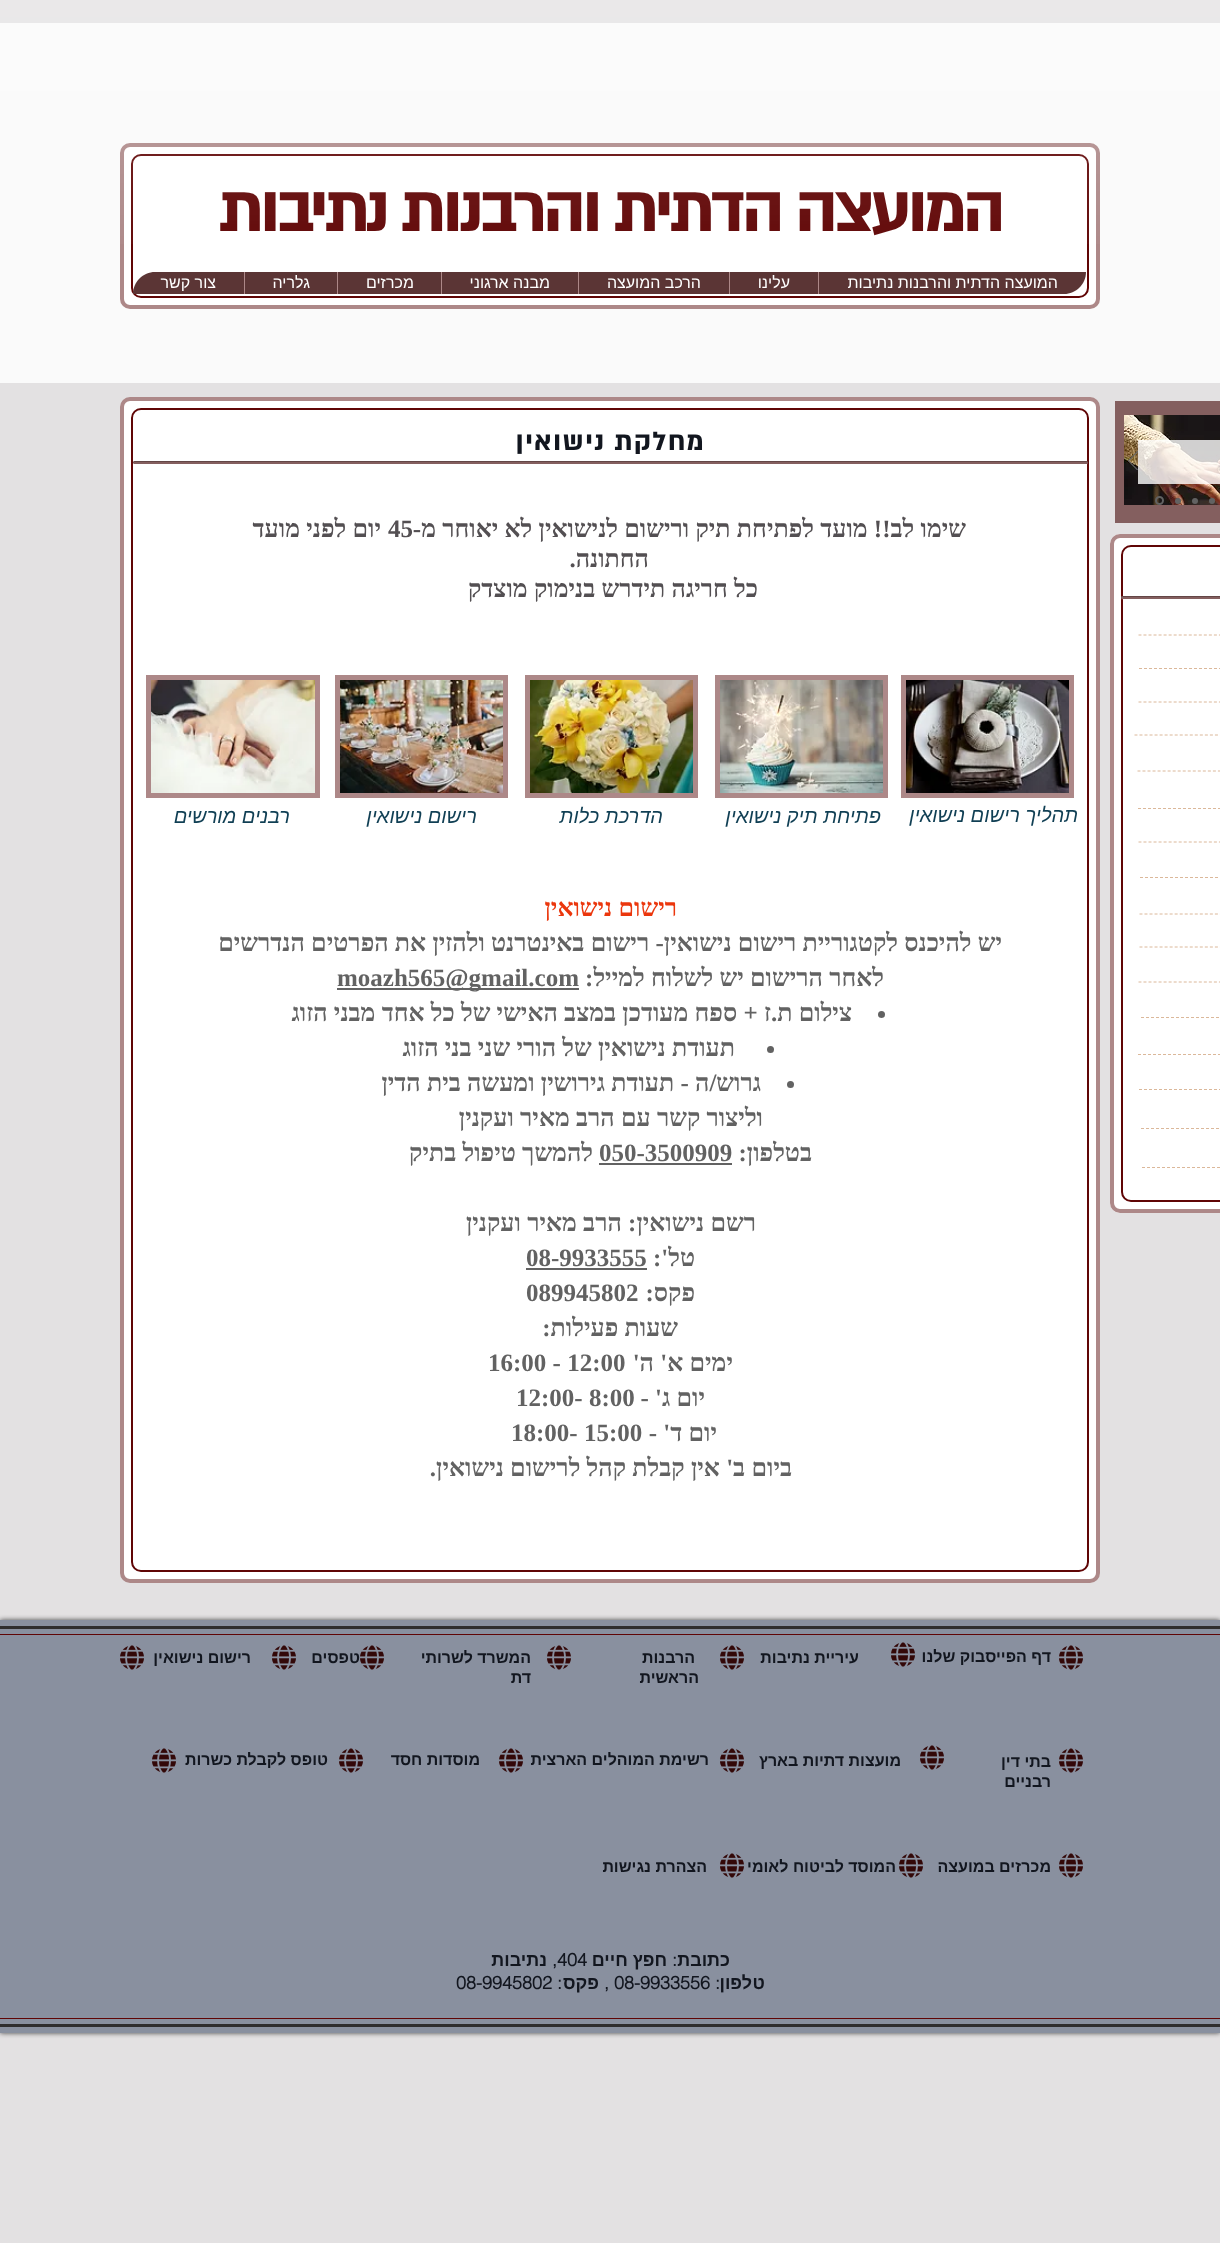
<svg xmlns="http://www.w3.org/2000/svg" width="1220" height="2243">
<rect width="100%" height="100%" fill="#e3e1e2"/>
<rect y="23" width="1220" height="360" fill="#fafafa"/>
<rect x="122" y="145" width="976" height="162" rx="8" fill="#fff" stroke="#ad8888" stroke-width="4"/>
<rect x="132" y="155" width="956" height="142" rx="9" fill="none" stroke="#600505" stroke-width="2"/>
<text x="1002" y="231" style="font-family:'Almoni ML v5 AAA';font-size:75px;font-weight:bold;letter-spacing:-3.75px;direction:rtl;fill:#600505">המועצה הדתית והרבנות נתיבות</text>
<image x="0" y="0" width="1220" height="244" href="media/1.png"/>
<path d="M155 272h931c0 12-10 22-22 22h-931c0-12 10-22 22-22z" fill="#5b3535"/>
<rect x="818" y="272" width="1" height="22" fill="#ad8888"/>
<text x="1058" y="288" style="font-family:Liberation Sans;font-size:16px;direction:rtl;fill:#fff">המועצה הדתית והרבנות נתיבות</text>
<rect x="729" y="272" width="1" height="22" fill="#ad8888"/>
<text x="790" y="288" style="font-family:Liberation Sans;font-size:16px;direction:rtl;fill:#fff">עלינו</text>
<rect x="578" y="272" width="1" height="22" fill="#ad8888"/>
<text x="701" y="288" style="font-family:Liberation Sans;font-size:16px;direction:rtl;fill:#fff">הרכב המועצה</text>
<rect x="441" y="272" width="1" height="22" fill="#ad8888"/>
<text x="550" y="288" style="font-family:Liberation Sans;font-size:16px;direction:rtl;fill:#fff">מבנה ארגוני</text>
<rect x="337" y="272" width="1" height="22" fill="#ad8888"/>
<text x="414" y="288" style="font-family:Liberation Sans;font-size:16px;direction:rtl;fill:#fff">מכרזים</text>
<rect x="244" y="272" width="1" height="22" fill="#ad8888"/>
<text x="310" y="288" style="font-family:Liberation Sans;font-size:16px;direction:rtl;fill:#fff">גלריה</text>
<text x="216" y="288" style="font-family:Liberation Sans;font-size:16px;direction:rtl;fill:#fff">צור קשר</text>
<rect x="1115" y="401" width="105" height="122" fill="#845f5f"/>
<image x="1124" y="415" width="96" height="90" href="media/2.png"/>
<rect x="1138" y="440" width="82" height="44" fill="#ffffffcc"/>
<image x="1128" y="451" width="10" height="19" href="media/3.png"/>
<circle cx="1212" cy="501" r="3" fill="#626262"/>
<circle cx="1195" cy="501" r="3" fill="#626262"/>
<circle cx="1178" cy="501" r="3" fill="#626262"/>
<circle cx="1159.5" cy="500.5" r="3.5" fill="none" stroke="#626262" stroke-width="2"/>
<rect x="122" y="399" width="976" height="1182" rx="8" fill="#fff" stroke="#ad8888" stroke-width="4"/>
<rect x="132" y="409" width="956" height="1162" rx="9" fill="none" stroke="#600505" stroke-width="2"/>
<text x="705" y="450" style="font-family:'Almoni ML v5 AAA';font-size:30px;font-weight:bold;letter-spacing:1.5px;direction:rtl;fill:#12161f">מחלקת נישואין</text>
<path d="M133 463v1l1 1h952c2 0 2-1 2-2l-2 1h-952z" fill="#ffffff1a"/>
<rect x="133" y="461" width="955" height="3" rx="1.5" fill="#845f5f"/>
<path d="M134 462h953l1 1c0-1-1-2-2-2h-952c-1 0-1 1-1 2z" fill="#00000040"/>
<text x="966" y="537" style="font-family:Liberation Serif;font-size:25px;font-weight:bold;direction:rtl;fill:#534f52">שימו לב!! מועד לפתיחת תיק ורישום לנישואין לא יאוחר מ-</text>
<text x="388" y="537" style="font-family:Liberation Serif;font-size:25px;font-weight:bold;fill:#534f52">45</text>
<text x="381" y="537" style="font-family:Liberation Serif;font-size:25px;font-weight:bold;direction:rtl;fill:#534f52">יום לפני מועד</text>
<text x="649" y="567" style="font-family:Liberation Serif;font-size:25px;font-weight:bold;direction:rtl;fill:#534f52">החתונה.</text>
<text x="758" y="597" style="font-family:Liberation Serif;font-size:25px;font-weight:bold;direction:rtl;fill:#534f52">כל חריגה תידרש בנימוק מוצדק</text>
<rect x="901" y="675" width="173" height="123" fill="#ad8888"/>
<image x="906" y="680" width="163" height="113" href="media/4.png"/>
<rect x="715" y="675" width="173" height="123" fill="#ad8888"/>
<image x="720" y="680" width="163" height="113" href="media/5.png"/>
<rect x="525" y="675" width="173" height="123" fill="#ad8888"/>
<image x="530" y="680" width="163" height="113" href="media/6.png"/>
<rect x="335" y="675" width="173" height="123" fill="#ad8888"/>
<image x="340" y="680" width="163" height="113" href="media/7.png"/>
<rect x="146" y="675" width="174" height="123" fill="#ad8888"/>
<image x="151" y="680" width="164" height="113" href="media/8.png"/>
<text x="1078" y="822" style="font-family:Liberation Sans;font-size:20px;font-style:italic;direction:rtl;fill:#103f54">תהליך רישום נישואין</text>
<text x="881" y="823" style="font-family:Liberation Sans;font-size:20px;font-style:italic;direction:rtl;fill:#103f54">פתיחת תיק נישואין</text>
<text x="663" y="823" style="font-family:Liberation Sans;font-size:20px;font-style:italic;direction:rtl;fill:#103f54">הדרכת כלות</text>
<text x="477" y="823" style="font-family:Liberation Sans;font-size:20px;font-style:italic;direction:rtl;fill:#103f54">רישום נישואין</text>
<text x="290" y="823" style="font-family:Liberation Sans;font-size:20px;font-style:italic;direction:rtl;fill:#103f54">רבנים מורשים</text>
<text x="677" y="916" style="font-family:Liberation Serif;font-size:25px;font-weight:bold;direction:rtl;fill:#eb360c">רישום נישואין</text>
<text x="1002" y="951" style="font-family:Liberation Serif;font-size:25px;font-weight:bold;direction:rtl;fill:#626262">יש להיכנס לקטגוריית רישום נישואין- רישום באינטרנט ולהזין את הפרטים הנדרשים</text>
<text x="884" y="986" style="font-family:Liberation Serif;font-size:25px;font-weight:bold;direction:rtl;fill:#626262">לאחר הרישום יש לשלוח למייל:</text>
<rect x="337" y="988" width="242" height="2" fill="#626262"/>
<text x="337" y="986" style="font-family:Liberation Serif;font-size:25px;font-weight:bold;fill:#626262">moazh565@gmail.com</text>
<circle cx="881.5" cy="1014.5" r="3.5" fill="#626262"/>
<text x="852" y="1021" style="font-family:Liberation Serif;font-size:25px;font-weight:bold;direction:rtl;fill:#626262">צילום ת.ז + ספח מעודכן במצב האישי של כל אחד מבני הזוג</text>
<circle cx="770.5" cy="1049.5" r="3.5" fill="#626262"/>
<text x="735" y="1056" style="font-family:Liberation Serif;font-size:25px;font-weight:bold;direction:rtl;fill:#626262">תעודת נישואין של הורי שני בני הזוג</text>
<circle cx="790.5" cy="1084.5" r="3.5" fill="#626262"/>
<text x="761" y="1091" style="font-family:Liberation Serif;font-size:25px;font-weight:bold;direction:rtl;fill:#626262">גרוש/ה - תעודת גירושין ומעשה בית הדין</text>
<text x="763" y="1126" style="font-family:Liberation Serif;font-size:25px;font-weight:bold;direction:rtl;fill:#626262">וליצור קשר עם הרב מאיר ועקנין</text>
<text x="812" y="1161" style="font-family:Liberation Serif;font-size:25px;font-weight:bold;direction:rtl;fill:#626262">בטלפון:</text>
<text x="599" y="1161" style="font-family:Liberation Serif;font-size:25px;font-weight:bold;fill:#626262">050-3500909</text>
<rect x="599" y="1163" width="133" height="2" fill="#626262"/>
<text x="593" y="1161" style="font-family:Liberation Serif;font-size:25px;font-weight:bold;direction:rtl;fill:#626262">להמשך טיפול בתיק</text>
<text x="756" y="1231" style="font-family:Liberation Serif;font-size:25px;font-weight:bold;direction:rtl;fill:#626262">רשם נישואין: הרב מאיר ועקנין</text>
<text x="695" y="1266" style="font-family:Liberation Serif;font-size:25px;font-weight:bold;direction:rtl;fill:#626262">טל':</text>
<text x="526" y="1266" style="font-family:Liberation Serif;font-size:25px;font-weight:bold;fill:#626262">08-9933555</text>
<rect x="526" y="1268" width="121" height="2" fill="#626262"/>
<text x="695" y="1301" style="font-family:Liberation Serif;font-size:25px;font-weight:bold;direction:rtl;fill:#626262">פקס:</text>
<text x="526" y="1301" style="font-family:Liberation Serif;font-size:25px;font-weight:bold;fill:#626262">089945802</text>
<text x="678" y="1336" style="font-family:Liberation Serif;font-size:25px;font-weight:bold;direction:rtl;fill:#626262">שעות פעילות:</text>
<text x="733" y="1371" style="font-family:Liberation Serif;font-size:25px;font-weight:bold;direction:rtl;fill:#626262">ימים א' ה'</text>
<text x="488" y="1371" style="font-family:Liberation Serif;font-size:25px;font-weight:bold;fill:#626262">16:00 - 12:00</text>
<text x="705" y="1406" style="font-family:Liberation Serif;font-size:25px;font-weight:bold;direction:rtl;fill:#626262">יום ג' -</text>
<text x="516" y="1406" style="font-family:Liberation Serif;font-size:25px;font-weight:bold;fill:#626262">12:00- 8:00</text>
<text x="717" y="1441" style="font-family:Liberation Serif;font-size:25px;font-weight:bold;direction:rtl;fill:#626262">יום ד' -</text>
<text x="511" y="1441" style="font-family:Liberation Serif;font-size:25px;font-weight:bold;fill:#626262">18:00- 15:00</text>
<text x="792" y="1476" style="font-family:Liberation Serif;font-size:25px;font-weight:bold;direction:rtl;fill:#626262">ביום ב' אין קבלת קהל לרישום נישואין.</text>
<path d="M1120 534h100v679h-100c-5.5 0-10-4.5-10-10v-659c0-5.5 4.5-10 10-10z" fill="#fff"/>
<rect x="1112" y="536" width="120" height="675" rx="8" fill="none" stroke="#ad8888" stroke-width="4"/>
<rect x="1122" y="546" width="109" height="655" rx="9" fill="none" stroke="#600505" stroke-width="2"/>
<path d="M1121 598c0 1 0 2 1 2h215c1 0 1-1 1-2l-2 1h-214z" fill="#ffffff1a"/>
<path d="M1122.5 596h97.5v3h-97.5c-1 0-1.5-.5-1.5-1.5c0-1 .5-1.5 1.5-1.5z" fill="#845f5f"/>
<path d="M1122 597h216l-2-1h-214l-1 2zm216 0h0z" fill="#634747" fill-rule="evenodd"/>
<path d="M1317.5 635h-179" fill="none" stroke="#dbb89a" stroke-dasharray="3 2.03"/>
<path d="M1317 668.5h-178" fill="none" stroke="#dbb89a" stroke-dasharray="3 2"/>
<path d="M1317.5 702h-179" fill="none" stroke="#dbb89a" stroke-dasharray="3 2.03"/>
<path d="M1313.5 735h-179" fill="none" stroke="#dbb89a" stroke-dasharray="3 2.03"/>
<path d="M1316.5 771h-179" fill="none" stroke="#dbb89a" stroke-dasharray="3 2.03"/>
<path d="M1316 808.5h-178" fill="none" stroke="#dbb89a" stroke-dasharray="3 2"/>
<path d="M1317.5 842h-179" fill="none" stroke="#dbb89a" stroke-dasharray="3 2.03"/>
<path d="M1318 877.5h-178" fill="none" stroke="#dbb89a" stroke-dasharray="3 2"/>
<path d="M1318.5 914h-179" fill="none" stroke="#dbb89a" stroke-dasharray="3 2.03"/>
<path d="M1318.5 947h-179" fill="none" stroke="#dbb89a" stroke-dasharray="3 2.03"/>
<path d="M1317.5 982h-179" fill="none" stroke="#dbb89a" stroke-dasharray="3 2.03"/>
<path d="M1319 1017.5h-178" fill="none" stroke="#dbb89a" stroke-dasharray="3 2"/>
<path d="M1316 1054.5h-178" fill="none" stroke="#dbb89a" stroke-dasharray="3 2"/>
<path d="M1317 1089.5h-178" fill="none" stroke="#dbb89a" stroke-dasharray="3 2"/>
<path d="M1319 1128.5h-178" fill="none" stroke="#dbb89a" stroke-dasharray="3 2"/>
<path d="M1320 1167.5h-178" fill="none" stroke="#dbb89a" stroke-dasharray="3 2"/>
<rect y="1620" width="1220" height="413" fill="#000000b3" filter="blur(2.5px)"/>
<rect y="1620" width="1220" height="413" fill="#89909f"/>
<rect y="1626" width="1220" height="3" fill="#2f2e2e"/>
<rect y="2024" width="1220" height="3" fill="#2f2e2e"/>
<rect y="1634" width="1220" height="1" fill="#600505"/>
<rect y="2018" width="1220" height="1" fill="#600505"/>
<image x="1059" y="1645" width="24" height="25" href="media/9.png"/>
<text x="1051" y="1662" style="font-family:Liberation Sans;font-size:16px;font-weight:bold;direction:rtl;fill:#12161f">דף הפייסבוק שלנו</text>
<image x="891" y="1642" width="24" height="25" href="media/9.png"/>
<text x="859" y="1663" style="font-family:Liberation Sans;font-size:16px;font-weight:bold;direction:rtl;fill:#12161f">עיריית נתיבות</text>
<image x="720" y="1645" width="24" height="25" href="media/9.png"/>
<text x="695" y="1663" style="font-family:Liberation Sans;font-size:16px;font-weight:bold;direction:rtl;fill:#12161f">הרבנות</text>
<text x="699" y="1683" style="font-family:Liberation Sans;font-size:16px;font-weight:bold;direction:rtl;fill:#12161f">הראשית</text>
<image x="547" y="1645" width="24" height="25" href="media/9.png"/>
<text x="531" y="1663" style="font-family:Liberation Sans;font-size:16px;font-weight:bold;direction:rtl;fill:#12161f">המשרד לשרותי</text>
<text x="531" y="1683" style="font-family:Liberation Sans;font-size:16px;font-weight:bold;direction:rtl;fill:#12161f">דת</text>
<image x="360" y="1645" width="24" height="25" href="media/9.png"/>
<text x="360" y="1663" style="font-family:Liberation Sans;font-size:16px;font-weight:bold;direction:rtl;fill:#12161f">טפסים</text>
<image x="272" y="1645" width="24" height="25" href="media/9.png"/>
<text x="251" y="1663" style="font-family:Liberation Sans;font-size:16px;font-weight:bold;direction:rtl;fill:#12161f">רישום נישואין</text>
<image x="120" y="1645" width="24" height="25" href="media/9.png"/>
<image x="1059" y="1748" width="24" height="25" href="media/9.png"/>
<text x="1051" y="1767" style="font-family:Liberation Sans;font-size:16px;font-weight:bold;direction:rtl;fill:#12161f">בתי דין</text>
<text x="1051" y="1787" style="font-family:Liberation Sans;font-size:16px;font-weight:bold;direction:rtl;fill:#12161f">רבניים</text>
<image x="920" y="1745" width="24" height="25" href="media/9.png"/>
<text x="901" y="1766" style="font-family:Liberation Sans;font-size:16px;font-weight:bold;direction:rtl;fill:#12161f">מועצות דתיות בארץ</text>
<image x="720" y="1748" width="24" height="25" href="media/9.png"/>
<text x="709" y="1765" style="font-family:Liberation Sans;font-size:16px;font-weight:bold;direction:rtl;fill:#12161f">רשימת המוהלים הארצית</text>
<image x="499" y="1748" width="24" height="25" href="media/9.png"/>
<text x="480" y="1765" style="font-family:Liberation Sans;font-size:16px;font-weight:bold;direction:rtl;fill:#12161f">מוסדות חסד</text>
<image x="339" y="1748" width="24" height="25" href="media/9.png"/>
<text x="328" y="1765" style="font-family:Liberation Sans;font-size:16px;font-weight:bold;direction:rtl;fill:#12161f">טופס לקבלת כשרות</text>
<image x="152" y="1748" width="24" height="25" href="media/9.png"/>
<image x="1059" y="1853" width="24" height="25" href="media/9.png"/>
<text x="1051" y="1872" style="font-family:Liberation Sans;font-size:16px;font-weight:bold;direction:rtl;fill:#12161f">מכרזים במועצה</text>
<image x="899" y="1853" width="24" height="25" href="media/9.png"/>
<text x="896" y="1872" style="font-family:Liberation Sans;font-size:16px;font-weight:bold;direction:rtl;fill:#12161f">המוסד לביטוח לאומי</text>
<image x="720" y="1853" width="24" height="25" href="media/9.png"/>
<text x="707" y="1872" style="font-family:Liberation Sans;font-size:16px;font-weight:bold;direction:rtl;fill:#12161f">הצהרת נגישות</text>
<text x="730" y="1966" style="font-family:Liberation Sans;font-size:18px;font-weight:bold;direction:rtl;fill:#12161f">כתובת</text>
<text x="677" y="1966" style="font-family:helvetica;font-size:18px;font-weight:bold;direction:rtl;fill:#12161f">:</text>
<text x="667" y="1966" style="font-family:Liberation Sans;font-size:18px;font-weight:bold;direction:rtl;fill:#12161f">חפץ חיים</text>
<text x="557" y="1966" style="font-family:helvetica;font-size:18px;font-weight:bold;fill:#12161f">404</text>
<text x="547" y="1966" style="font-family:Liberation Sans;font-size:18px;font-weight:bold;direction:rtl;fill:#12161f">נתיבות</text>
<text x="557" y="1966" style="font-family:helvetica;font-size:18px;font-weight:bold;direction:rtl;fill:#12161f">,</text>
<text x="765" y="1989" style="font-family:Liberation Sans;font-size:18px;font-weight:bold;direction:rtl;fill:#12161f">ט</text>
<text x="752" y="1989" style="font-family:Liberation Sans;font-size:18px;font-weight:bold;direction:rtl;fill:#12161f">לפון</text>
<text x="720" y="1989" style="font-family:helvetica;font-size:18px;font-weight:bold;direction:rtl;fill:#12161f">:</text>
<text x="614" y="1989" style="font-family:helvetica;font-size:18px;font-weight:bold;fill:#12161f">08-9933556</text>
<text x="599" y="1989" style="font-family:Liberation Sans;font-size:18px;font-weight:bold;direction:rtl;fill:#12161f">פקס</text>
<text x="562" y="1989" style="font-family:helvetica;font-size:18px;font-weight:bold;direction:rtl;fill:#12161f">:</text>
<text x="456" y="1989" style="font-family:helvetica;font-size:18px;font-weight:bold;fill:#12161f">08-9945802</text>
<text x="609" y="1989" style="font-family:helvetica;font-size:18px;font-weight:bold;direction:rtl;fill:#12161f">,</text>
</svg>
